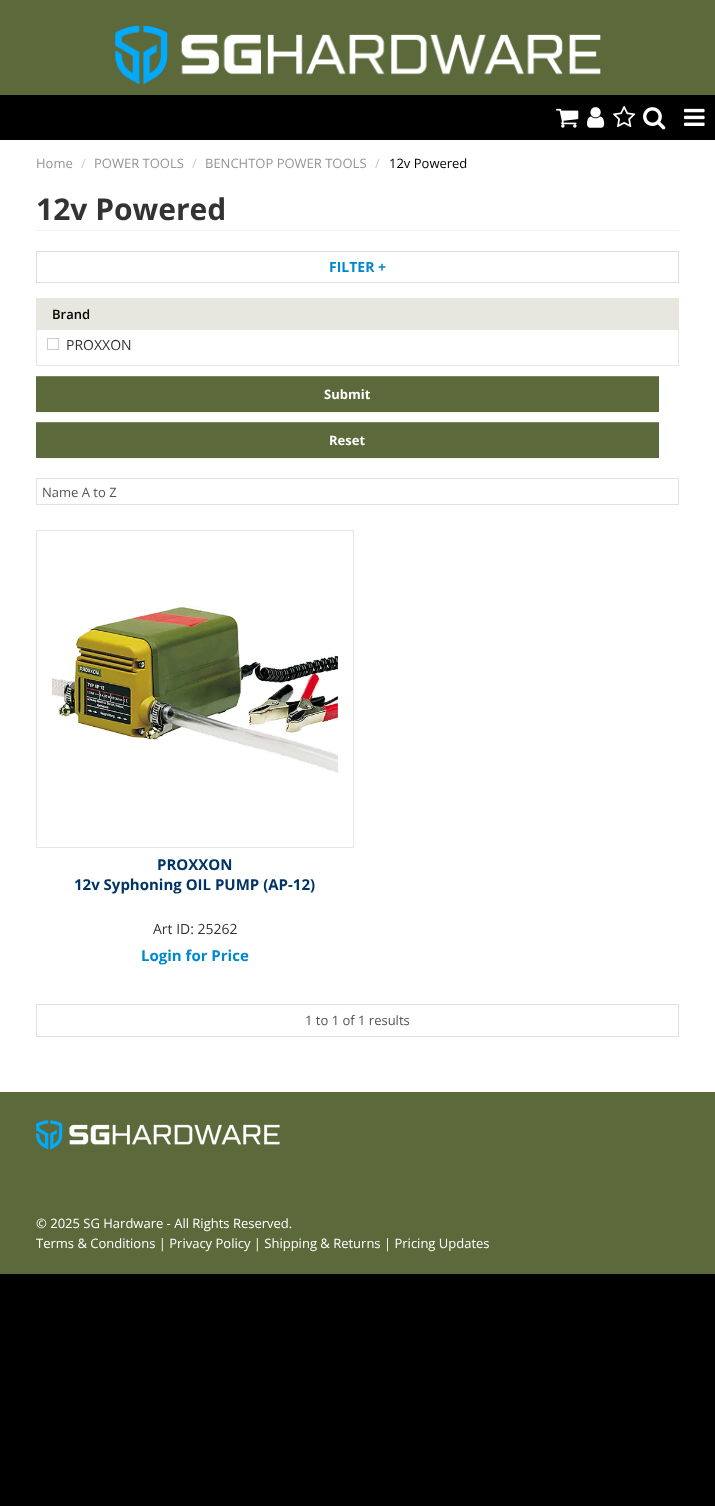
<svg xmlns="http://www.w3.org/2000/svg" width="715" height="1506">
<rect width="100%" height="100%" fill="#000"/>
<rect y="140" width="715" height="952" fill="#fff"/>
<rect width="715" height="95" fill="#5c693b"/>
<image x="115" y="25" width="486" height="60" href="media/1.png"/>
<image x="556" y="108" width="23" height="20" href="media/2.png"/>
<image x="587" y="107" width="18" height="21" href="media/3.png"/>
<image x="613" y="105" width="23" height="23" href="media/4.png"/>
<image x="643" y="107" width="23" height="23" href="media/5.png"/>
<image x="684" y="108" width="21" height="18" href="media/6.png"/>
<text x="36" y="168" style="font-family:Open Sans;font-size:13px;fill:#939598">Home</text>
<text x="81" y="168" style="font-family:Open Sans;font-size:13px;fill:#ccc">/</text>
<text x="94" y="168" style="font-family:Open Sans;font-size:13px;fill:#939598">POWER TOOLS</text>
<text x="192" y="168" style="font-family:Open Sans;font-size:13px;fill:#ccc">/</text>
<text x="205" y="168" style="font-family:Open Sans;font-size:13px;fill:#939598">BENCHTOP POWER TOOLS</text>
<text x="375" y="168" style="font-family:Open Sans;font-size:13px;fill:#ccc">/</text>
<text x="389" y="168" style="font-family:Open Sans;font-size:13px;fill:#000">12v Powered</text>
<rect x="36" y="230" width="643" height="1" fill="#f0f0f0"/>
<text x="36" y="220" style="font-family:Open Sans;font-size:30px;font-weight:bold;fill:#333">12v Powered</text>
<rect x="36.5" y="251.5" width="642" height="31" fill="none" stroke="#ddd"/>
<text x="329" y="272" style="font-family:Open Sans;font-size:14px;font-weight:bold;fill:#08c">FILTER +</text>
<rect x="678" y="298" width="1" height="68" fill="#e7e7e0"/>
<rect x="36" y="365" width="643" height="1" fill="#e7e7e0"/>
<rect x="36" y="298" width="1" height="68" fill="#e7e7e0"/>
<rect x="37" y="298" width="641" height="32" fill="#e7e7e0"/>
<text x="52" y="319" style="font-family:Open Sans;font-size:13px;font-weight:600;fill:#000">Brand</text>
<rect x="47.5" y="338.5" width="11" height="11" fill="none" stroke="#ccc"/>
<text x="66" y="350" style="font-family:Open Sans;font-size:14px;fill:#333">PROXXON</text>
<rect x="36" y="377" width="623" height="36" fill="#0000000d" filter="blur(1px)"/>
<rect x="36" y="377" width="623" height="35" fill="#5c693b"/>
<rect x="36" y="376" width="623" height="1" fill="#7d8762"/>
<text x="324" y="399" style="font-family:Open Sans;font-size:13px;font-weight:bold;fill:#fff">Submit</text>
<rect x="36" y="423" width="623" height="36" fill="#0000000d" filter="blur(1px)"/>
<rect x="36" y="423" width="623" height="35" fill="#5c693b"/>
<rect x="36" y="422" width="623" height="1" fill="#7d8762"/>
<text x="329" y="445" style="font-family:Open Sans;font-size:13px;font-weight:bold;fill:#fff">Reset</text>
<rect x="36.5" y="478.5" width="642" height="26" fill="none" stroke="#e1e1e1"/>
<text x="42" y="497" style="font-family:Open Sans;font-size:13px;fill:#555">Name A to Z</text>
<rect x="36.5" y="530.5" width="317" height="317" fill="none" stroke="#e7e6e0"/>
<image x="52" y="607" width="286" height="167" href="media/7.png"/>
<text x="157" y="870" style="font-family:Open Sans;font-size:15px;font-weight:bold;fill:#003466">PROXXON</text>
<text x="74" y="890" style="font-family:Open Sans;font-size:15px;font-weight:bold;fill:#003466">12v Syphoning OIL PUMP (AP-12)</text>
<text x="153" y="934" style="font-family:Open Sans;font-size:14px;fill:#333">Art ID: 25262</text>
<text x="141" y="961" style="font-family:Open Sans;font-size:15px;font-weight:bold;fill:#08c">Login for Price</text>
<rect x="36.5" y="1004.5" width="642" height="32" fill="none" stroke="#e1e1e1"/>
<text x="305" y="1025" style="font-family:Open Sans;font-size:13px;fill:#555">1 to 1 of 1 results</text>
<rect y="1092" width="715" height="182" fill="#5c693b"/>
<image x="36" y="1120" width="244" height="30" href="media/8.png"/>
<text x="36" y="1228" style="font-family:Open Sans;font-size:13px;fill:#fff">© 2025 SG Hardware - All Rights Reserved.</text>
<text x="36" y="1248" style="font-family:Open Sans;font-size:13px;fill:#fff">Terms &amp; Conditions | Privacy Policy | Shipping &amp; Returns | Pricing Updates</text>
</svg>
